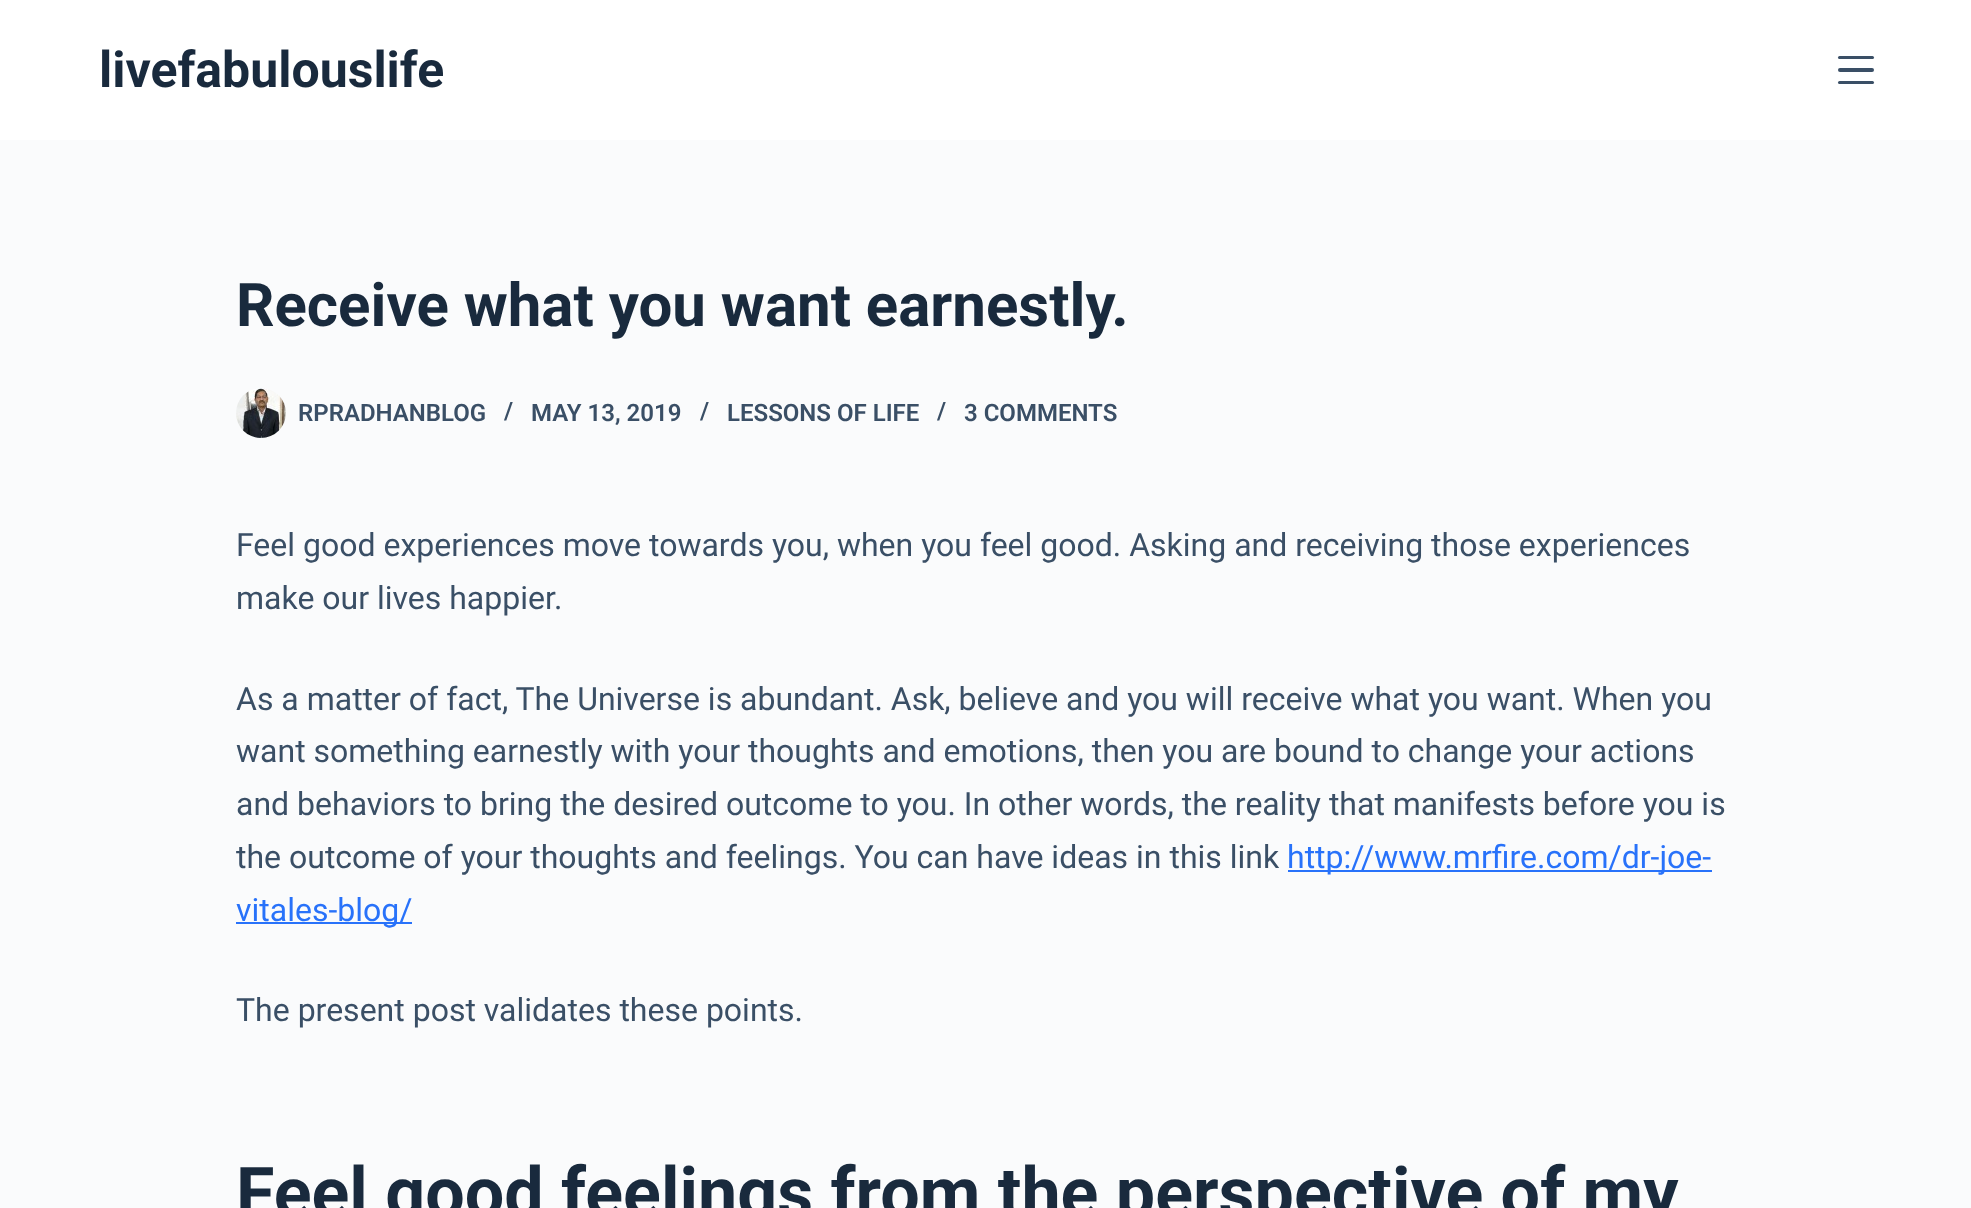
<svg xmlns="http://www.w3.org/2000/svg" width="1971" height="1208">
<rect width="100%" height="100%" fill="#fafbfc"/>
<rect width="1971" height="140" fill="#fff"/>
<text x="99" y="87" style="font-family:Roboto;font-size:50px;font-weight:bold;fill:#192a3d">livefabulouslife</text>
<rect x="1838" y="56" width="36" height="3" rx="1.5" fill="#3a4f66"/>
<rect x="1838" y="68" width="36" height="4" rx="2" fill="#3a4f66"/>
<rect x="1838" y="81" width="36" height="3" rx="1.5" fill="#3a4f66"/>
<text x="236" y="326" style="font-family:Roboto;font-size:60px;font-weight:bold;fill:#192a3d">Receive what you want earnestly.</text>
<image x="236" y="388" width="50" height="50" href="media/1.png"/>
<text x="298" y="421" style="font-family:Roboto;font-size:24px;font-weight:600;fill:#3a4f66">RPRADHANBLOG</text>
<text x="504" y="419" style="font-family:Roboto;font-size:24px;font-weight:600;fill:#3a4f66">/</text>
<text x="531" y="421" style="font-family:Roboto;font-size:24px;font-weight:600;fill:#3a4f66">MAY 13, 2019</text>
<text x="700" y="419" style="font-family:Roboto;font-size:24px;font-weight:600;fill:#3a4f66">/</text>
<text x="727" y="421" style="font-family:Roboto;font-size:24px;font-weight:600;fill:#3a4f66">LESSONS OF LIFE</text>
<text x="937" y="419" style="font-family:Roboto;font-size:24px;font-weight:600;fill:#3a4f66">/</text>
<text x="964" y="421" style="font-family:Roboto;font-size:24px;font-weight:600;fill:#3a4f66">3 COMMENTS</text>
<text x="236" y="556" style="font-family:Roboto;font-size:32px;fill:#3a4f66">Feel good experiences move towards you, when you feel good. Asking and receiving those experiences</text>
<text x="236" y="609" style="font-family:Roboto;font-size:32px;fill:#3a4f66">make our lives happier.</text>
<text x="236" y="710" style="font-family:Roboto;font-size:32px;fill:#3a4f66">As a matter of fact, The Universe is abundant. Ask, believe and you will receive what you want. When you</text>
<text x="236" y="762" style="font-family:Roboto;font-size:32px;fill:#3a4f66">want something earnestly with your thoughts and emotions, then you are bound to change your actions</text>
<text x="236" y="815" style="font-family:Roboto;font-size:32px;fill:#3a4f66">and behaviors to bring the desired outcome to you. In other words, the reality that manifests before you is</text>
<text x="236" y="868" style="font-family:Roboto;font-size:32px;fill:#3a4f66">the outcome of your thoughts and feelings. You can have ideas in this link</text>
<rect x="1288" y="870" width="424" height="2" fill="#2872fa"/>
<text x="1287" y="868" style="font-family:Roboto;font-size:32px;fill:#2872fa">http://www.mrfire.com/dr-joe-</text>
<rect x="236" y="922" width="176" height="2" fill="#2872fa"/>
<text x="236" y="921" style="font-family:Roboto;font-size:32px;fill:#2872fa">vitales-blog/</text>
<text x="236" y="1021" style="font-family:Roboto;font-size:32px;fill:#3a4f66">The present post validates these points.</text>
<text x="236" y="1217" style="font-family:Roboto;font-size:70px;font-weight:bold;fill:#192a3d">Feel good feelings from the perspective of my</text>
</svg>
